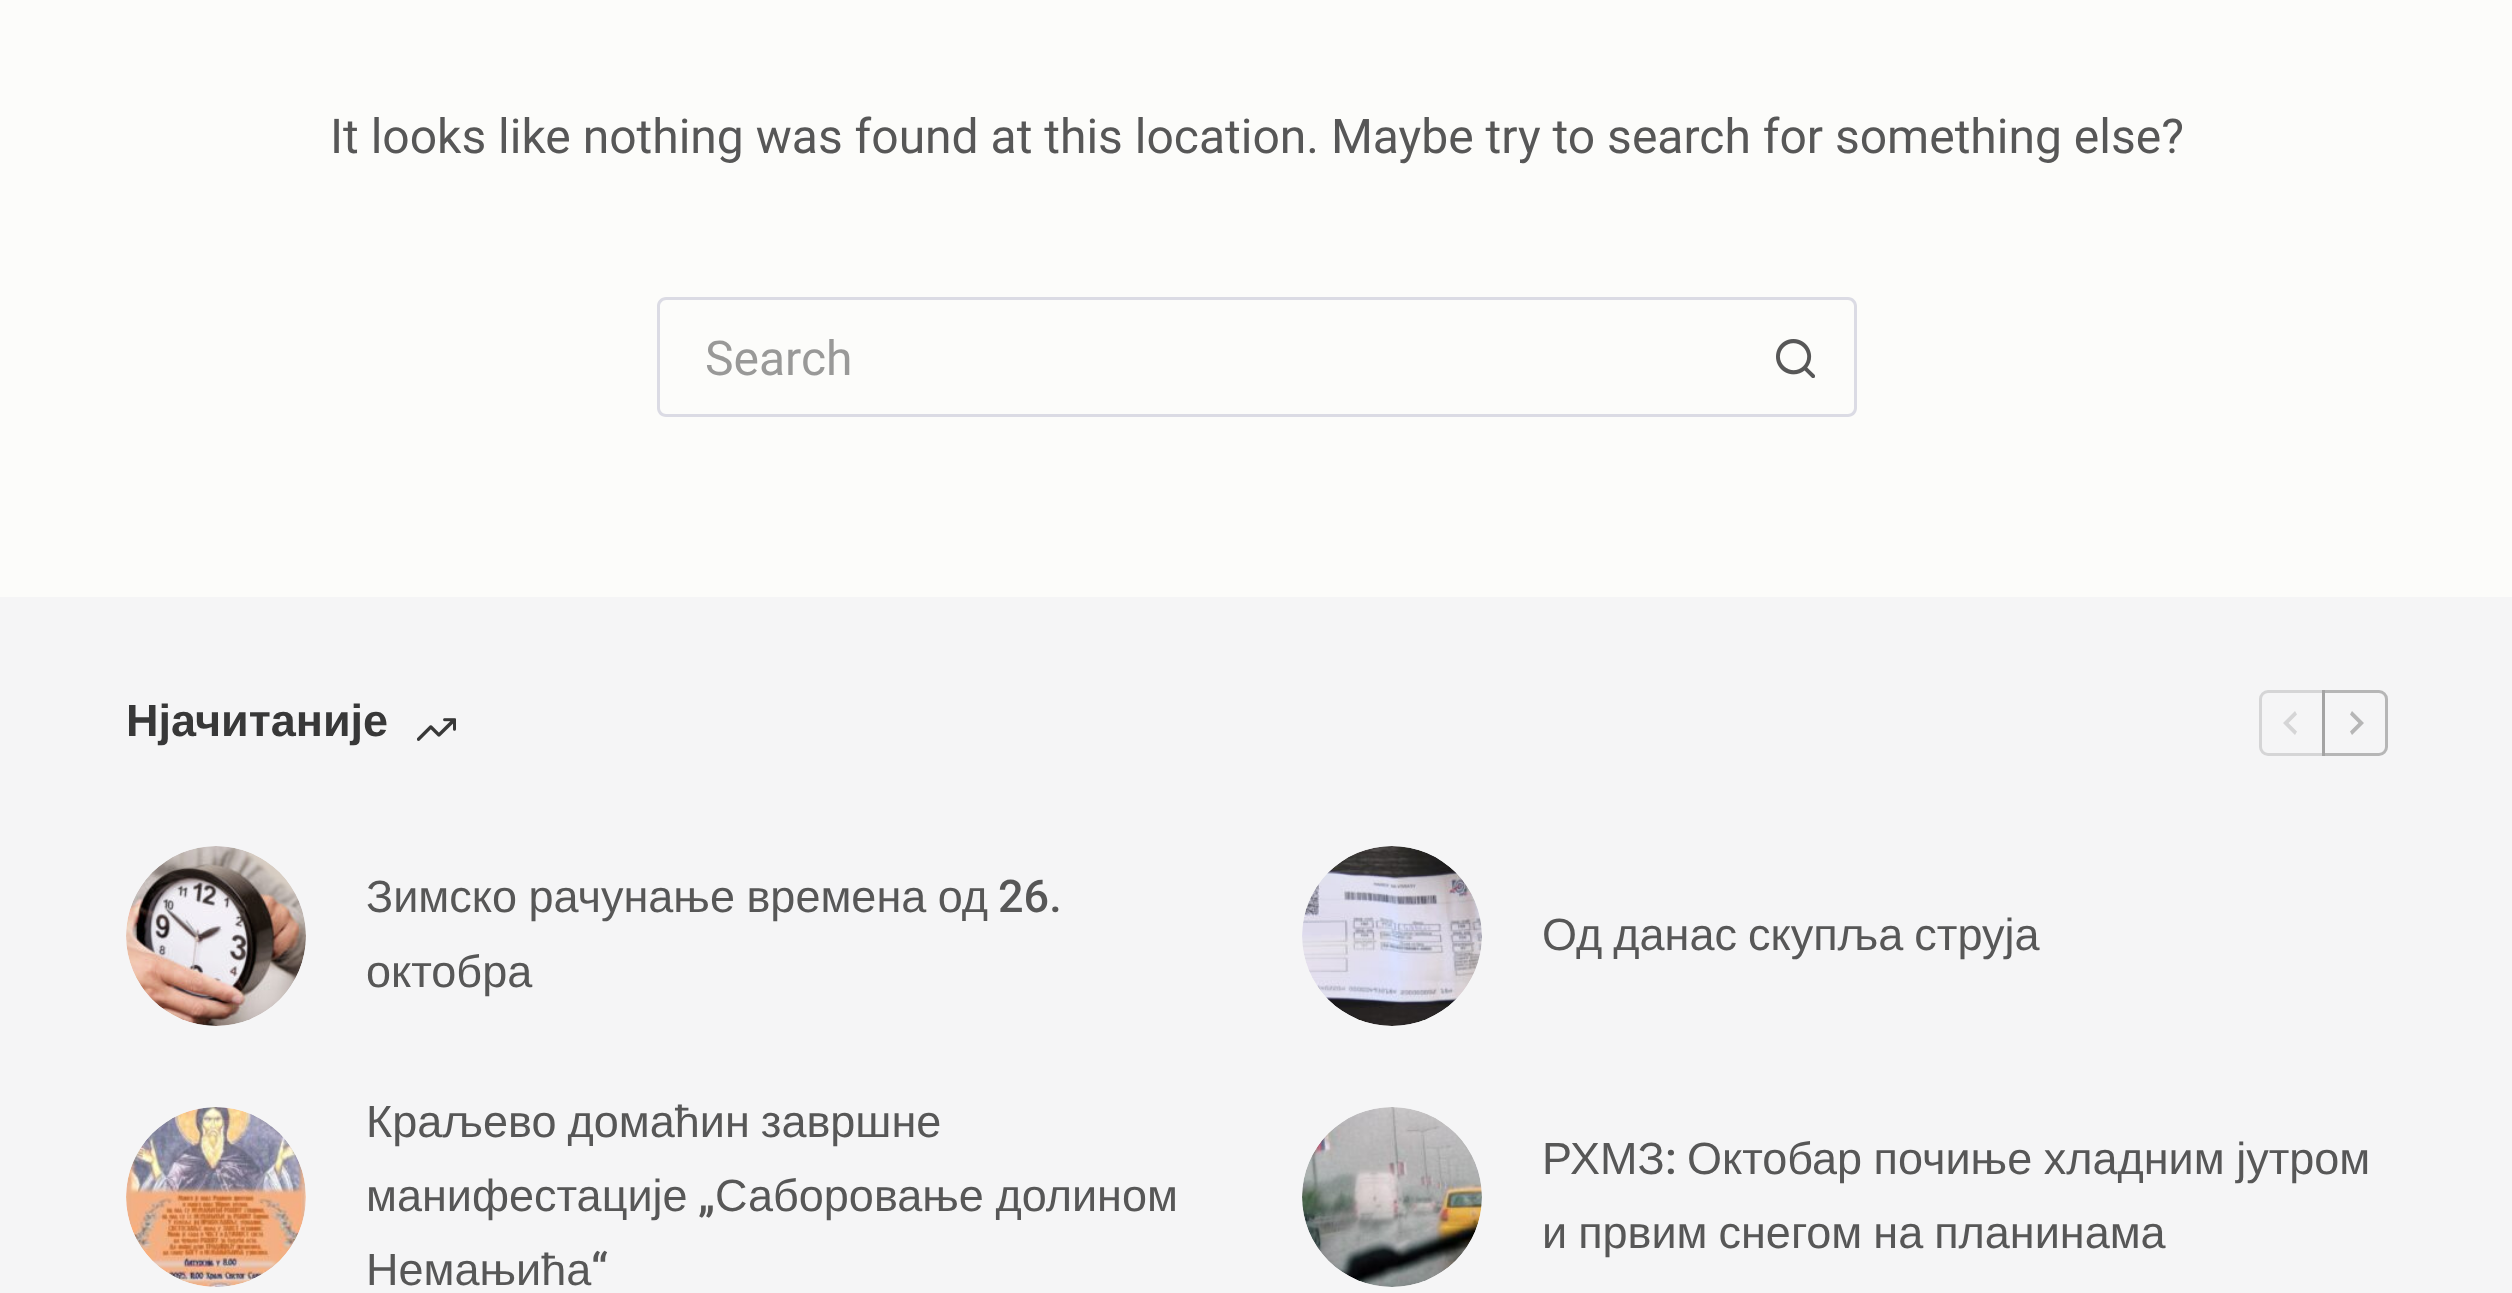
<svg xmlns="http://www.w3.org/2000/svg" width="2512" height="1293">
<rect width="100%" height="100%" fill="#fcfcfa"/>
<text x="330" y="153" style="font-family:Roboto;font-size:48px;fill:#575757">It looks like nothing was found at this location. Maybe try to search for something else?</text>
<path d="M666 297h1071v120h-1071c-5 0-9-4-9-9v-102c0-5 4-9 9-9zm0 3h1071v114h-1071c-3 0-6-3-6-6v-102c0-3 3-6 6-6z" fill="#dbdbe4" fill-rule="evenodd"/>
<text x="705" y="375" style="font-family:Roboto;font-size:48px;fill:#999998">Search</text>
<path d="M1737 297h111c5 0 9 4 9 9v102c0 5-4 9-9 9h-111zm0 3h111c3 0 6 3 6 6v102c0 3-3 6-6 6h-111z" fill="#dbdbe4" fill-rule="evenodd"/>
<image x="1776" y="339" width="39" height="39" href="media/1.png"/>
<rect y="597" width="2512" height="696" fill="#f5f5f6"/>
<text x="126" y="736" style="font-family:Liberation Sans;font-size:45px;font-weight:bold;fill:#383838">Нјачитаније</text>
<image x="417" y="718" width="39" height="23" href="media/2.png"/>
<path d="M2268 691.5h55.5v63h-55.5c-4 0-7.5-3.5-7.5-7.5v-48c0-4 3.5-7.5 7.5-7.5z" fill="none" stroke="#d5d5d6" stroke-width="3"/>
<path d="M2295 735l-12-12l12-12l2 3.5l-8.5 8.5l8.5 8.5z" fill="#d5d5d6"/>
<path d="M2323.5 691.5h55.5c4 0 7.5 3.5 7.5 7.5v48c0 4-3.5 7.5-7.5 7.5h-55.5z" fill="none" stroke="#57575766" stroke-width="3"/>
<path d="M2350 731.5l8.5-8.5l-8.5-8.5l2-3.5l12 12l-12 12z" fill="#b6b6b6"/>
<image x="126" y="846" width="180" height="180" href="media/3.png"/>
<text x="366" y="912" word-spacing="-1" style="font-family:Liberation Sans;font-size:45px;fill:#575757">Зимско рачунање времена од</text>
<text x="998" y="912" style="font-family:Roboto;font-size:45px;font-weight:500;fill:#575757">26.</text>
<text x="366" y="987" style="font-family:Liberation Sans;font-size:45px;fill:#575757">октобра</text>
<image x="1302" y="846" width="180" height="180" href="media/4.png"/>
<text x="1542" y="950" word-spacing="-1.5" style="font-family:Liberation Sans;font-size:45px;fill:#575757">Од данас скупља струја</text>
<image x="126" y="1107" width="180" height="180" href="media/5.png"/>
<text x="366" y="1137" word-spacing="-1.5" style="font-family:Liberation Sans;font-size:45px;fill:#575757">Краљево домаћин завршне</text>
<text x="366" y="1211" style="font-family:Liberation Sans;font-size:45px;fill:#575757">манифестације</text>
<text x="698" y="1211" style="font-family:Roboto;font-size:45px;font-weight:500;fill:#575757">„</text>
<text x="715" y="1211" word-spacing="-1" style="font-family:Liberation Sans;font-size:45px;fill:#575757">Саборовање долином</text>
<text x="366" y="1285" style="font-family:Liberation Sans;font-size:45px;fill:#575757">Немањића</text>
<text x="591" y="1285" style="font-family:Roboto;font-size:45px;font-weight:500;fill:#575757">“</text>
<image x="1302" y="1107" width="180" height="180" href="media/6.png"/>
<text x="1542" y="1174" style="font-family:Liberation Sans;font-size:45px;fill:#575757">РХМЗ</text>
<text x="1665" y="1174" style="font-family:Roboto;font-size:45px;font-weight:500;fill:#575757">:</text>
<text x="1687" y="1174" word-spacing="-1" style="font-family:Liberation Sans;font-size:45px;fill:#575757">Октобар почиње хладним јутром</text>
<text x="1542" y="1248" word-spacing="-1.5" style="font-family:Liberation Sans;font-size:45px;fill:#575757">и првим снегом на планинама</text>
</svg>
